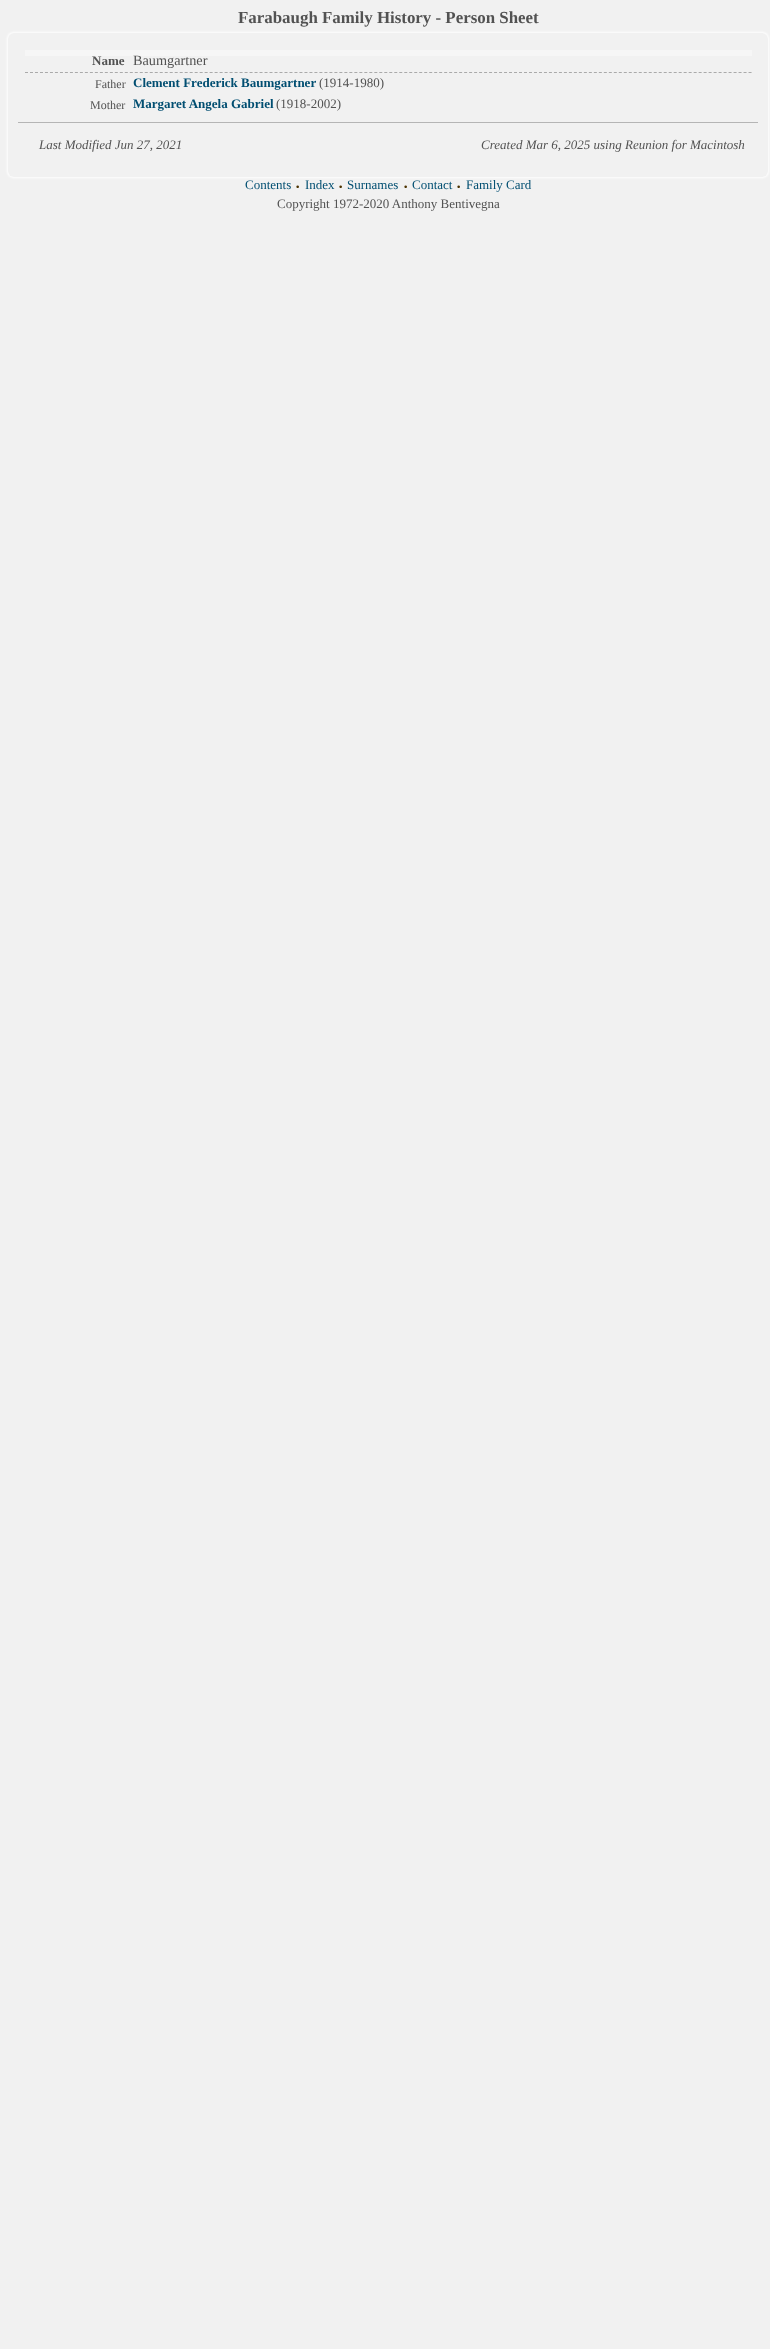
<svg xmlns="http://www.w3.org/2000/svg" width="770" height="2349">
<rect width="100%" height="100%" fill="#f1f1f1"/>
<text x="238" y="23" style="font-family:Liberation Serif;font-size:16.9px;font-weight:bold;fill:#525252">Farabaugh Family History - Person Sheet</text>
<rect x="7" y="32" width="762" height="146" rx="7" fill="#fff" filter="blur(1px)"/>
<rect x="8" y="33" width="760" height="144" rx="6" fill="#f1f1f1"/>
<rect x="25" y="50" width="727" height="6" fill="#f6f6f6"/>
<path d="M25 72.5h727" fill="none" stroke="#aaa" stroke-dasharray="3 1.99"/>
<text x="92" y="65" style="font-family:Liberation Serif;font-size:13px;font-weight:bold;fill:#525252">Name</text>
<text x="133" y="65" style="font-family:Liberation Serif;font-size:14.25px;fill:#525252">Baumgartner</text>
<text x="95" y="88" style="font-family:Liberation Serif;font-size:12px;fill:#525252">Father</text>
<text x="133" y="87" style="font-family:Liberation Serif;font-size:13px;font-weight:bold;fill:#014e71">Clement Frederick Baumgartner</text>
<text x="319" y="87" style="font-family:Liberation Serif;font-size:13px;fill:#525252">(1914-1980)</text>
<text x="90" y="109" style="font-family:Liberation Serif;font-size:12px;fill:#525252">Mother</text>
<text x="133" y="108" style="font-family:Liberation Serif;font-size:13px;font-weight:bold;fill:#014e71">Margaret Angela Gabriel</text>
<text x="276" y="108" style="font-family:Liberation Serif;font-size:13px;fill:#525252">(1918-2002)</text>
<rect x="18" y="122" width="740" height="1" fill="#b5b5b5"/>
<text x="39" y="149" style="font-family:Liberation Serif;font-size:13px;font-style:italic;fill:#525252">Last Modified Jun 27, 2021</text>
<text x="481" y="149" style="font-family:Liberation Serif;font-size:13px;font-style:italic;fill:#525252">Created Mar 6, 2025 using Reunion for Macintosh</text>
<text x="245" y="189" style="font-family:Liberation Serif;font-size:13px;fill:#014e71">Contents</text>
<text x="295" y="192" style="font-family:Liberation Serif;font-size:16px;font-weight:bold;fill:#4d3300">·</text>
<text x="305" y="189" style="font-family:Liberation Serif;font-size:13px;fill:#014e71">Index</text>
<text x="338" y="192" style="font-family:Liberation Serif;font-size:16px;font-weight:bold;fill:#4d3300">·</text>
<text x="347" y="189" style="font-family:Liberation Serif;font-size:13px;fill:#014e71">Surnames</text>
<text x="403" y="192" style="font-family:Liberation Serif;font-size:16px;font-weight:bold;fill:#4d3300">·</text>
<text x="412" y="189" style="font-family:Liberation Serif;font-size:13px;fill:#014e71">Contact</text>
<text x="456" y="192" style="font-family:Liberation Serif;font-size:16px;font-weight:bold;fill:#4d3300">·</text>
<text x="466" y="189" style="font-family:Liberation Serif;font-size:13px;fill:#014e71">Family Card</text>
<text x="277" y="208" style="font-family:Liberation Serif;font-size:13px;fill:#525252">Copyright 1972-2020 Anthony Bentivegna</text>
</svg>
